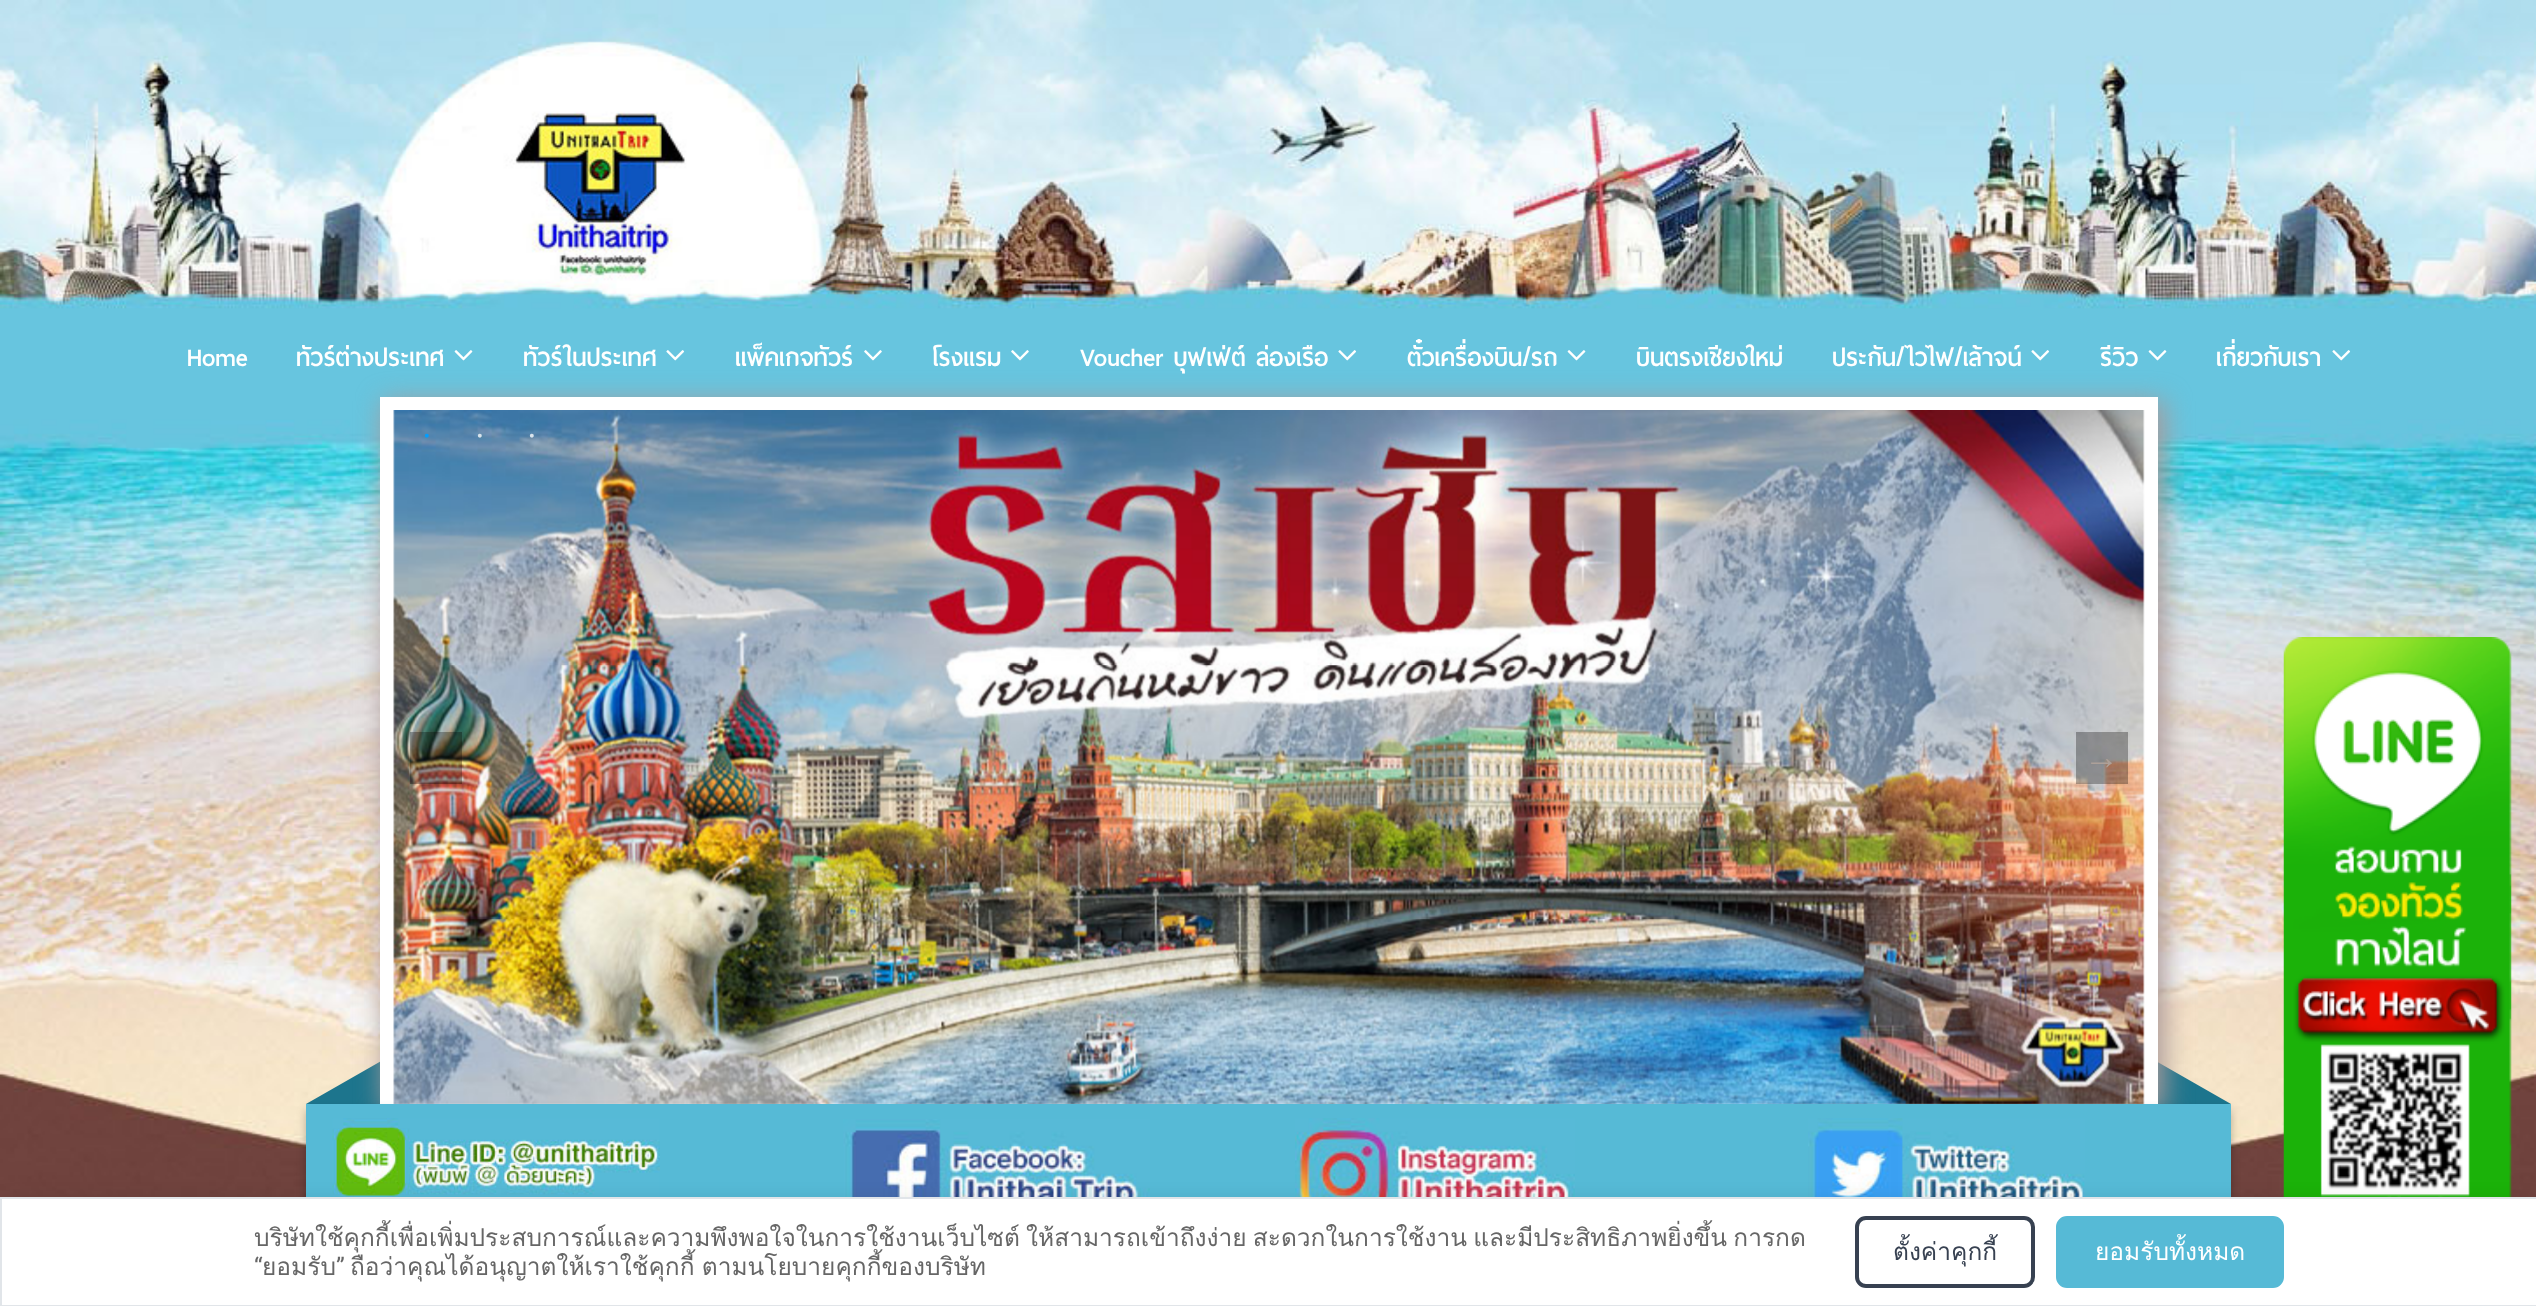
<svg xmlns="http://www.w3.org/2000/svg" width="2536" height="1306">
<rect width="100%" height="100%" fill="#fff"/>
<image x="0" y="0" width="2536" height="1197" href="media/1.png"/>
<text x="187" y="366" style="font-family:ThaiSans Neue;font-size:31.75px;font-weight:bold;fill:#fff">Home</text>
<text x="296" y="366" style="font-family:ThaiSans Neue;font-size:31.75px;font-weight:bold;fill:#fff">ทัวร์ต่างประเทศ</text>
<image x="454" y="350" width="19" height="11" href="media/2.png"/>
<text x="523" y="366" style="font-family:ThaiSans Neue;font-size:31.75px;font-weight:bold;fill:#fff">ทัวร์ในประเทศ</text>
<image x="666" y="350" width="19" height="11" href="media/3.png"/>
<text x="735" y="366" style="font-family:ThaiSans Neue;font-size:31.75px;font-weight:bold;fill:#fff">แพ็คเกจทัวร์</text>
<image x="864" y="350" width="18" height="11" href="media/4.png"/>
<text x="931" y="366" style="font-family:ThaiSans Neue;font-size:31.75px;font-weight:bold;fill:#fff">โรงแรม</text>
<image x="1011" y="350" width="18" height="11" href="media/4.png"/>
<text x="1080" y="366" style="font-family:ThaiSans Neue;font-size:31.75px;font-weight:bold;fill:#fff">Voucher บุฟเฟ่ต์ ล่องเรือ</text>
<image x="1338" y="350" width="19" height="11" href="media/3.png"/>
<text x="1407" y="366" style="font-family:ThaiSans Neue;font-size:31.75px;font-weight:bold;fill:#fff">ตั๋วเครื่องบิน/รถ</text>
<image x="1567" y="350" width="19" height="11" href="media/2.png"/>
<text x="1636" y="366" style="font-family:ThaiSans Neue;font-size:31.75px;font-weight:bold;fill:#fff">บินตรงเชียงใหม่</text>
<text x="1832" y="366" style="font-family:ThaiSans Neue;font-size:31.75px;font-weight:bold;fill:#fff">ประกัน/ไวไฟ/เล้าจน์</text>
<image x="2031" y="350" width="19" height="11" href="media/3.png"/>
<text x="2100" y="366" style="font-family:ThaiSans Neue;font-size:31.75px;font-weight:bold;fill:#fff">รีวิว</text>
<image x="2148" y="350" width="19" height="11" href="media/2.png"/>
<text x="2216" y="366" style="font-family:ThaiSans Neue;font-size:31.75px;font-weight:bold;fill:#fff">เกี่ยวกับเรา</text>
<image x="2332" y="350" width="19" height="11" href="media/3.png"/>
<path d="M306 1104l84-48v52l-84 48z" fill="#1d758d"/>
<path d="M2147 1056l84 48v52l-84-48z" fill="#1d758d"/>
<rect x="383" y="401" width="1782" height="710" fill="#a99" filter="blur(13px)"/>
<rect x="380" y="397" width="1778" height="707" fill="#fff"/>
<image x="393" y="410" width="1752" height="694" href="media/5.png"/>
<text x="424" y="441" style="font-family:Liberation Serif;font-size:16px;fill:#009eff">•</text>
<text x="477" y="441" style="font-family:Liberation Serif;font-size:16px;fill:#d9e4ec">•</text>
<text x="529" y="441" style="font-family:Liberation Serif;font-size:16px;fill:#d9e4ec">•</text>
<rect x="410" y="732" width="52" height="52" fill="#0000004d"/>
<rect x="2076" y="732" width="52" height="52" fill="#0000004d"/>
<text x="2084" y="769" style="font-family:Liberation Serif;font-size:35px;fill:#ada099">→</text>
<rect x="306" y="1110" width="1925" height="136" fill="#00000042" filter="blur(5px)"/>
<rect x="306" y="1104" width="1925" height="93" fill="#56bad6"/>
<image x="332" y="1118" width="328" height="79" href="media/6.png"/>
<image x="843" y="1119" width="307" height="78" href="media/7.png"/>
<image x="1295" y="1118" width="280" height="79" href="media/8.png"/>
<image x="1808" y="1118" width="277" height="79" href="media/9.png"/>
<image x="2283" y="637" width="229" height="560" href="media/10.png"/>
<rect y="1204" width="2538" height="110" fill="#00000026" filter="blur(10.5px)"/>
<rect x="1" y="1198" width="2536" height="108" fill="#fff" stroke="#e1e5e9" stroke-width="2"/>
<text x="254" y="1246" word-spacing="-2" style="font-family:Loma;font-size:24.5px;fill:#666">บริษัทใช้คุกกี้เพื่อเพิ่มประสบการณ์และความพึงพอใจในการใช้งานเว็บไซต์ ให้สามารถเข้าถึงง่าย สะดวกในการใช้งาน และมีประสิทธิภาพยิ่งขึ้น การกด</text>
<text x="254" y="1275" style="font-family:Roboto;font-size:24.5px;fill:#666">“</text>
<text x="262" y="1275" style="font-family:Loma;font-size:24.5px;fill:#666">ยอมรับ</text>
<text x="336" y="1275" style="font-family:Roboto;font-size:24.5px;fill:#666">”</text>
<text x="350" y="1275" word-spacing="-1" style="font-family:Loma;font-size:24.5px;fill:#666">ถือว่าคุณได้อนุญาตให้เราใช้คุกกี้ ตามนโยบายคุกกี้ของบริษัท</text>
<rect x="1857" y="1218" width="176" height="68" rx="9" fill="none" stroke="#374151" stroke-width="4"/>
<text x="1893" y="1260" style="font-family:Loma;font-size:24.5px;fill:#374151">ตั้งค่าคุกกี้</text>
<rect x="2058" y="1218" width="224" height="68" rx="9" fill="#56bad6" stroke="#56bad6" stroke-width="4"/>
<text x="2095" y="1260" style="font-family:Loma;font-size:24.5px;fill:#fff">ยอมรับทั้งหมด</text>
</svg>
